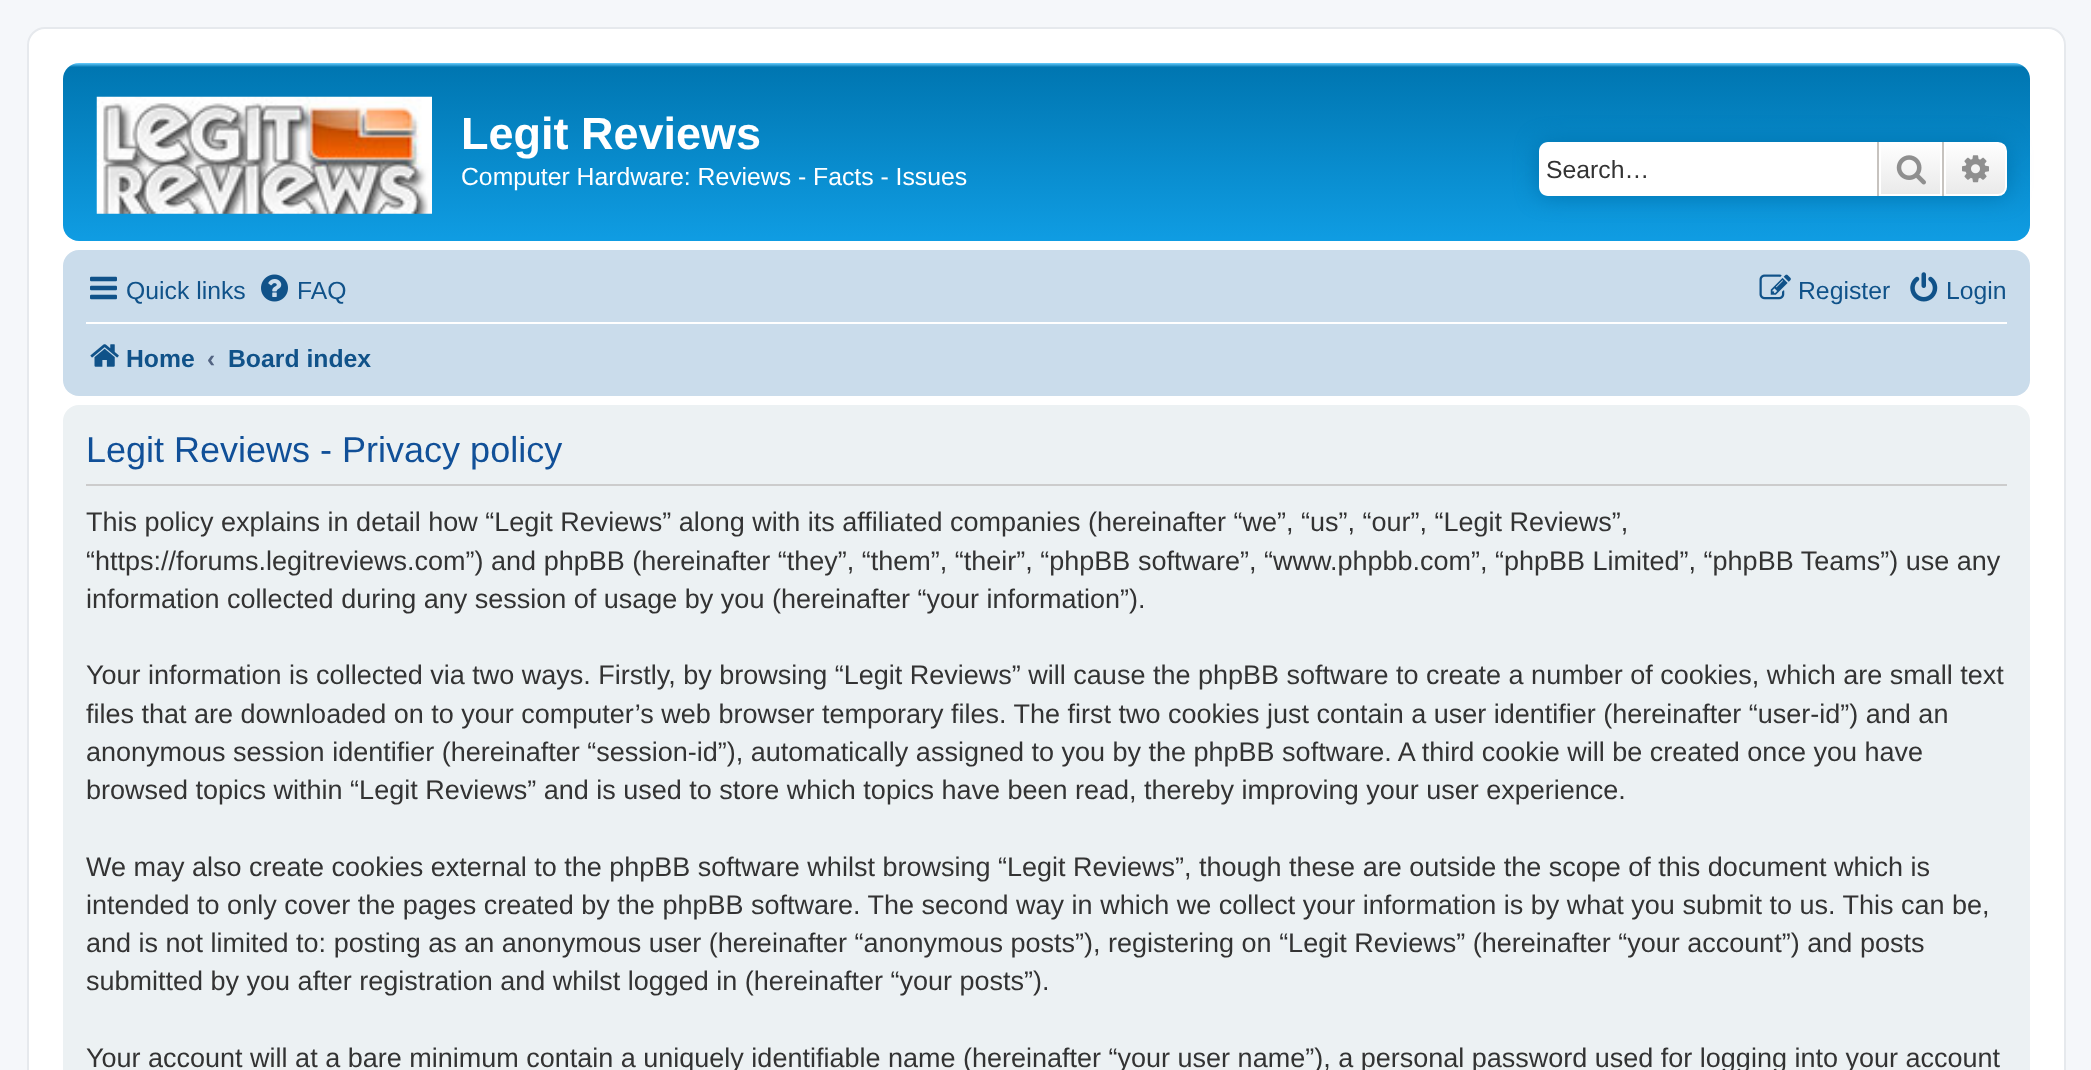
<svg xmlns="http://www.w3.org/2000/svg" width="2091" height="1070">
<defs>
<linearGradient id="g1" gradientUnits="userSpaceOnUse" x1="1046" y1="63" x2="1046" y2="270"><stop offset="0" stop-color="#6aceff"/><stop offset="0.02" stop-color="#0076b1"/><stop offset="1" stop-color="#12a3eb"/></linearGradient>
<linearGradient id="g2" gradientUnits="userSpaceOnUse" x1="1910" y1="142" x2="1910" y2="196"><stop offset="0" stop-color="#fff"/><stop offset="1" stop-color="#e9e9e9"/></linearGradient>
<linearGradient id="g3" gradientUnits="userSpaceOnUse" x1="1976" y1="142" x2="1976" y2="196"><stop offset="0" stop-color="#fff"/><stop offset="1" stop-color="#e9e9e9"/></linearGradient>
</defs>
<rect width="100%" height="100%" fill="#f5f7fa"/>
<rect x="28" y="28" width="2037" height="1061" rx="17" fill="#fff" stroke="#e6e9ed" stroke-width="2"/>
<rect x="63" y="63" width="1967" height="178" rx="16" fill="url(#g1)"/>
<image x="96" y="96" width="336" height="118" href="media/1.png"/>
<text x="461" y="149" style="font-family:Liberation Sans;font-size:45px;font-weight:bold;fill:#fff">Legit Reviews</text>
<text x="461" y="185" style="font-family:Liberation Sans;font-size:24.75px;fill:#fff">Computer Hardware: Reviews - Facts - Issues</text>
<rect x="1539" y="142" width="468" height="54" rx="9" fill="#0075b0" filter="blur(11px)"/>
<path d="M1548 142h329v54h-329c-5 0-9-4-9-9v-36c0-5 4-9 9-9z" fill="#fff"/>
<text x="1546" y="178" style="font-family:Liberation Sans;font-size:24.75px;fill:#333">Search…</text>
<rect x="1881" y="144" width="59" height="50" fill="url(#g2)"/>
<rect x="1880" y="143" width="61" height="52" fill="none" stroke="#fff" stroke-width="2"/>
<rect x="1942" y="142" width="2" height="54" fill="#c7c3bf"/>
<rect x="1877" y="142" width="2" height="54" fill="#c7c3bf"/>
<image x="1896" y="155" width="30" height="30" href="media/2.png"/>
<path d="M1945 143h53c4.5 0 8 3.5 8 8v36c0 4.5-3.5 8-8 8h-53z" fill="url(#g3)" stroke="#fff" stroke-width="2"/>
<image x="1962" y="155" width="27" height="28" href="media/3.png"/>
<rect x="63" y="250" width="1967" height="146" rx="16" fill="#cadceb"/>
<image x="90" y="276" width="27" height="24" href="media/4.png"/>
<text x="126" y="299" style="font-family:Liberation Sans;font-size:24.75px;fill:#105289">Quick links</text>
<image x="261" y="274" width="27" height="28" href="media/5.png"/>
<text x="297" y="299" style="font-family:Liberation Sans;font-size:24.75px;fill:#105289">FAQ</text>
<image x="1759" y="274" width="32" height="26" href="media/6.png"/>
<text x="1798" y="299" style="font-family:Liberation Sans;font-size:24.75px;fill:#105289">Register</text>
<image x="1910" y="272" width="28" height="30" href="media/7.png"/>
<text x="1946" y="299" style="font-family:Liberation Sans;font-size:24.75px;fill:#105289">Login</text>
<rect x="86" y="322" width="1921" height="2" fill="#fff"/>
<image x="90" y="344" width="29" height="23" href="media/8.png"/>
<text x="126" y="367" style="font-family:Liberation Sans;font-size:24.75px;font-weight:bold;fill:#105289">Home</text>
<text x="207" y="367" style="font-family:Liberation Sans;font-size:24.75px;font-weight:bold;fill:#536482">‹</text>
<text x="228" y="367" style="font-family:Liberation Sans;font-size:24.75px;font-weight:bold;fill:#105289">Board index</text>
<rect x="63" y="405" width="1967" height="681" rx="16" fill="#ecf1f3"/>
<rect x="86" y="484" width="1921" height="2" fill="#ccc"/>
<text x="86" y="462" style="font-family:Liberation Sans;font-size:36px;fill:#115098">Legit Reviews - Privacy policy</text>
<text x="86" y="531" style="font-family:Liberation Sans;font-size:27px;fill:#333">This policy explains in detail how “Legit Reviews” along with its affiliated companies (hereinafter “we”, “us”, “our”, “Legit Reviews”,</text>
<text x="86" y="570" style="font-family:Liberation Sans;font-size:27px;fill:#333">“https://forums.legitreviews.com”) and phpBB (hereinafter “they”, “them”, “their”, “phpBB software”, “www.phpbb.com”, “phpBB Limited”, “phpBB Teams”) use any</text>
<text x="86" y="608" style="font-family:Liberation Sans;font-size:27px;fill:#333">information collected during any session of usage by you (hereinafter “your information”).</text>
<text x="86" y="684" style="font-family:Liberation Sans;font-size:27px;fill:#333">Your information is collected via two ways. Firstly, by browsing “Legit Reviews” will cause the phpBB software to create a number of cookies, which are small text</text>
<text x="86" y="723" style="font-family:Liberation Sans;font-size:27px;fill:#333">files that are downloaded on to your computer’s web browser temporary files. The first two cookies just contain a user identifier (hereinafter “user-id”) and an</text>
<text x="86" y="761" style="font-family:Liberation Sans;font-size:27px;fill:#333">anonymous session identifier (hereinafter “session-id”), automatically assigned to you by the phpBB software. A third cookie will be created once you have</text>
<text x="86" y="799" style="font-family:Liberation Sans;font-size:27px;fill:#333">browsed topics within “Legit Reviews” and is used to store which topics have been read, thereby improving your user experience.</text>
<text x="86" y="876" style="font-family:Liberation Sans;font-size:27px;fill:#333">We may also create cookies external to the phpBB software whilst browsing “Legit Reviews”, though these are outside the scope of this document which is</text>
<text x="86" y="914" style="font-family:Liberation Sans;font-size:27px;fill:#333">intended to only cover the pages created by the phpBB software. The second way in which we collect your information is by what you submit to us. This can be,</text>
<text x="86" y="952" style="font-family:Liberation Sans;font-size:27px;fill:#333">and is not limited to: posting as an anonymous user (hereinafter “anonymous posts”), registering on “Legit Reviews” (hereinafter “your account”) and posts</text>
<text x="86" y="990" style="font-family:Liberation Sans;font-size:27px;fill:#333">submitted by you after registration and whilst logged in (hereinafter “your posts”).</text>
<text x="86" y="1067" style="font-family:Liberation Sans;font-size:27px;fill:#333">Your account will at a bare minimum contain a uniquely identifiable name (hereinafter “your user name”), a personal password used for logging into your account</text>
</svg>
